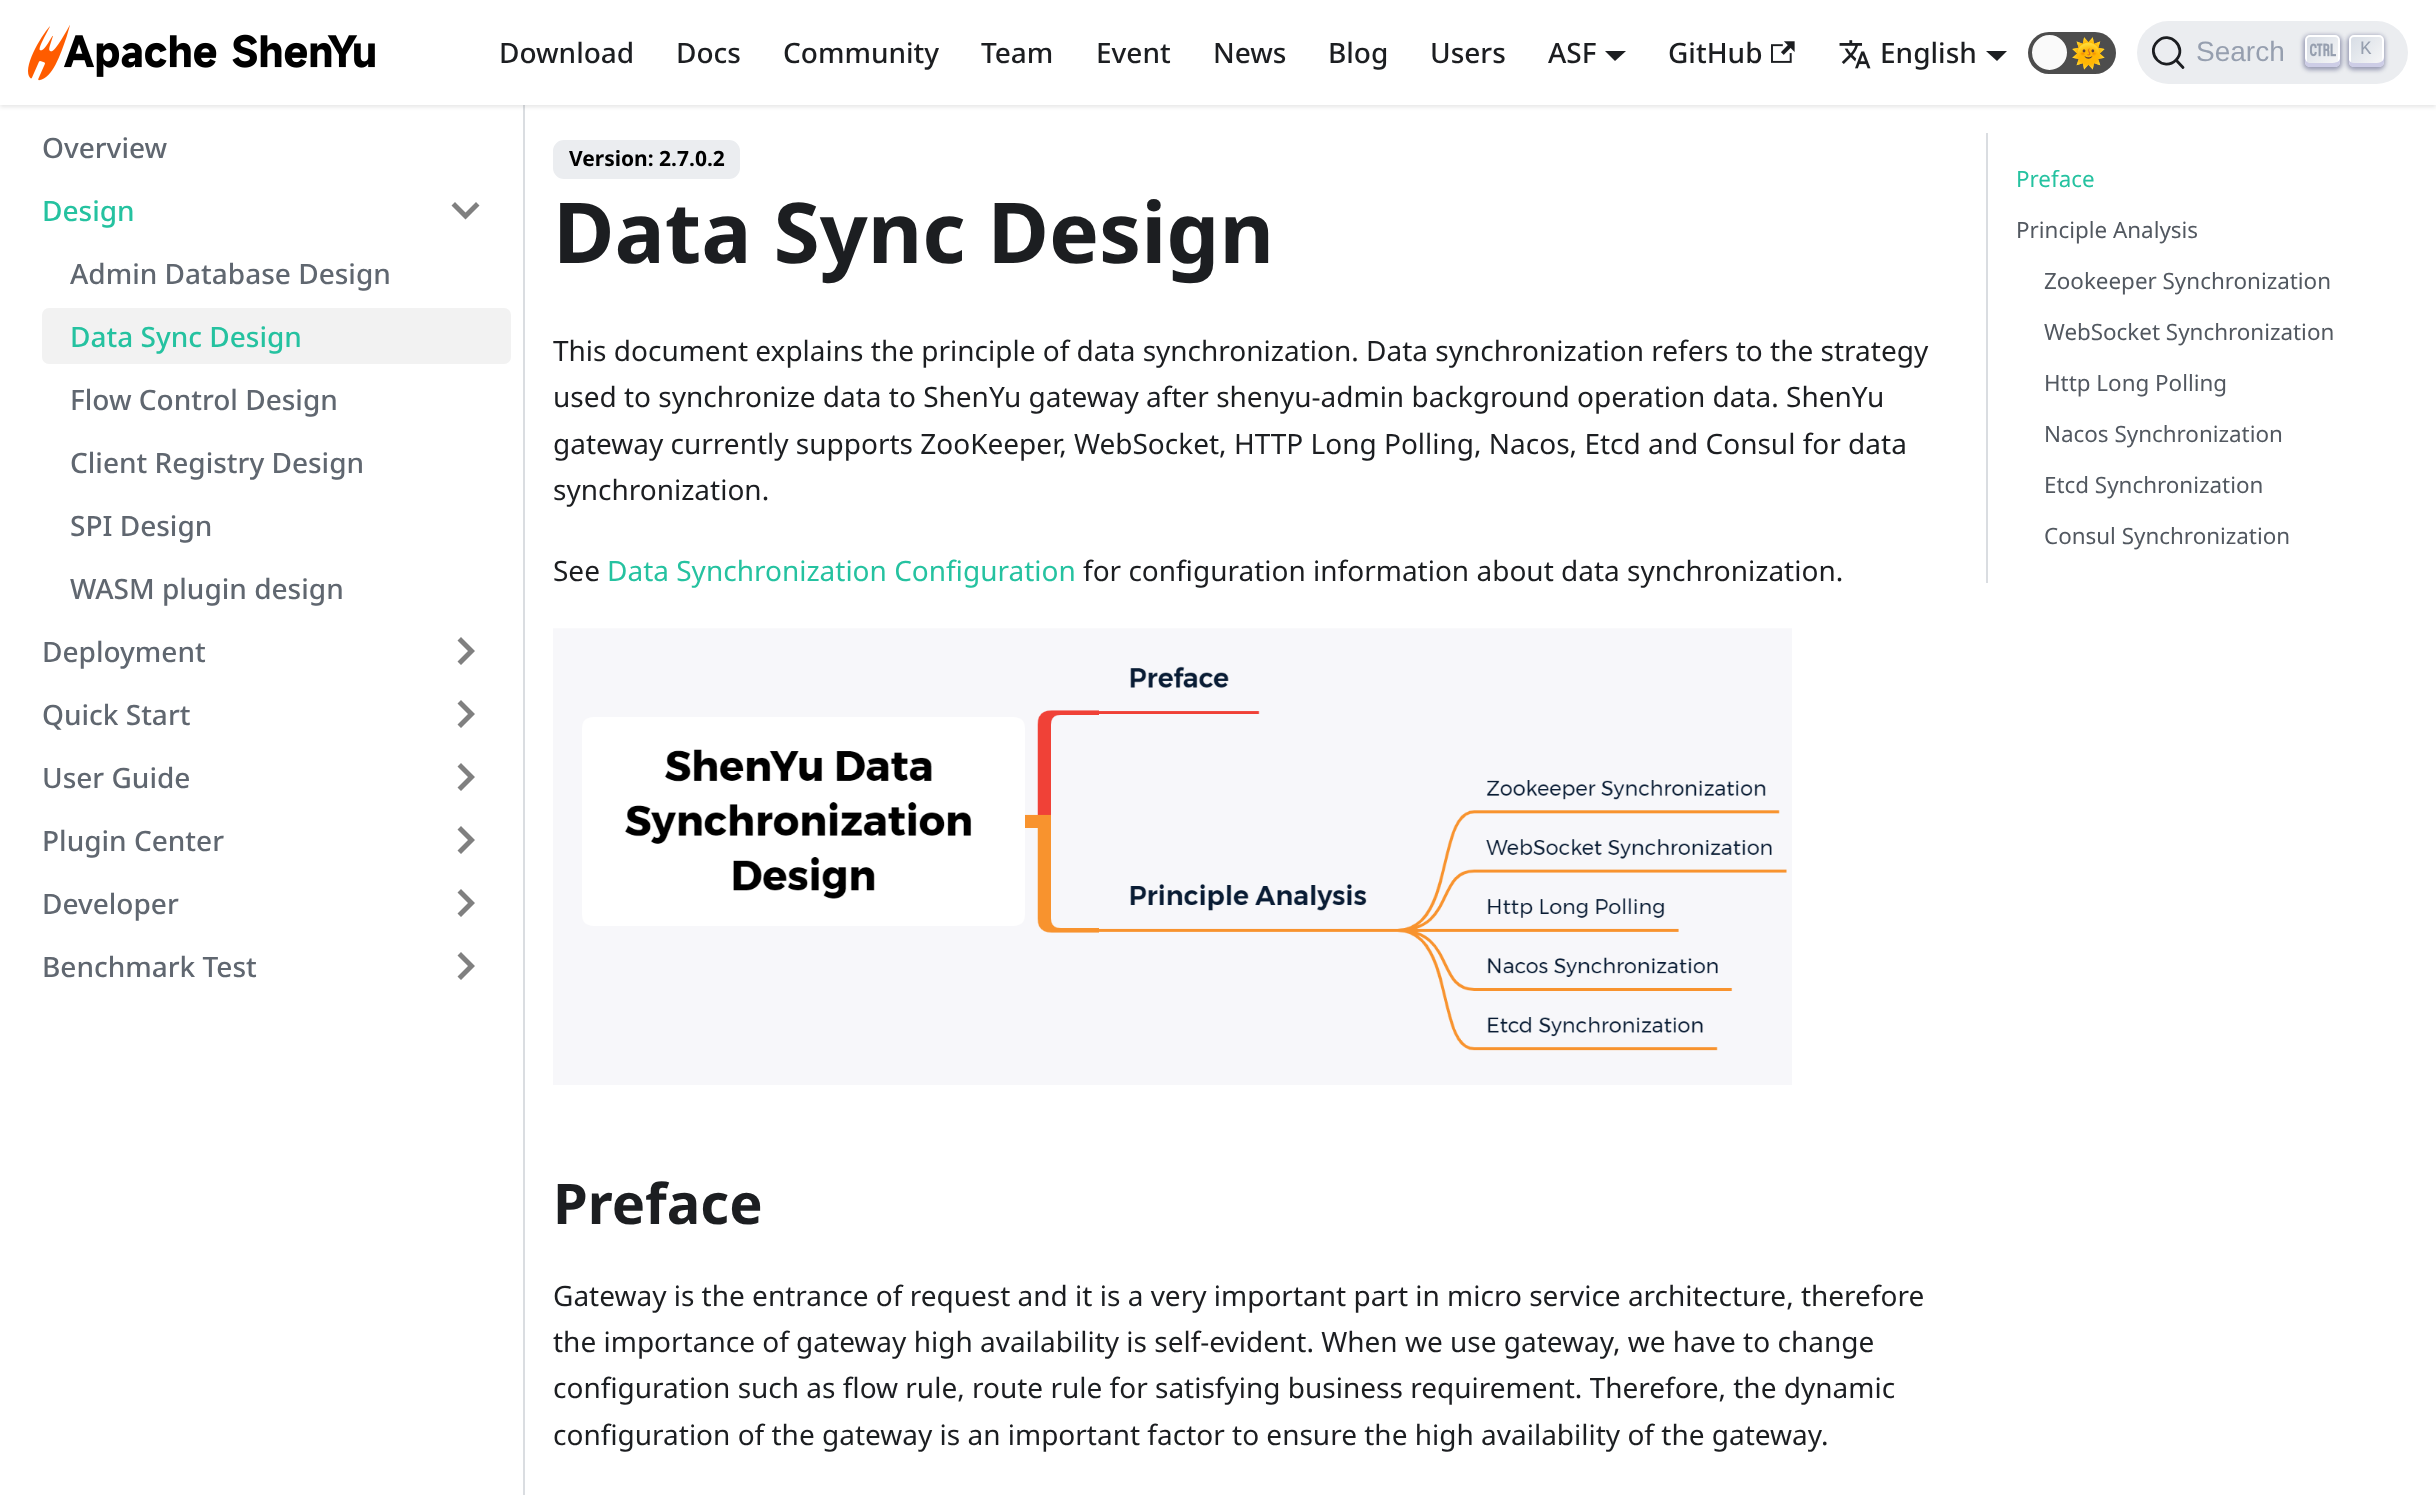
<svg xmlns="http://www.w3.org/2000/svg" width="2436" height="1495">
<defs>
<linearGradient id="g1" gradientUnits="userSpaceOnUse" x1="2306" y1="34" x2="2339" y2="67"><stop offset="0" stop-color="#d5dbe4"/><stop offset="1" stop-color="#f8f8f8"/></linearGradient>
<linearGradient id="g2" gradientUnits="userSpaceOnUse" x1="2349" y1="34" x2="2383" y2="67"><stop offset="0" stop-color="#d5dbe4"/><stop offset="1" stop-color="#f8f8f8"/></linearGradient>
</defs>
<rect width="100%" height="100%" fill="#fff"/>
<rect x="523" y="105" width="2" height="1390" fill="#dadde1"/>
<rect y="2" width="2436" height="105" fill="#0000001a" filter="blur(2px)"/>
<rect width="2436" height="105" fill="#fff"/>
<image x="28" y="25" width="347" height="56" href="media/1.png"/>
<text x="499" y="63" style="font-family:Noto Sans;font-size:28px;font-weight:500;fill:#1c1e21">Download</text>
<text x="676" y="63" style="font-family:Noto Sans;font-size:28px;font-weight:500;fill:#1c1e21">Docs</text>
<text x="783" y="63" style="font-family:Noto Sans;font-size:28px;font-weight:500;fill:#1c1e21">Community</text>
<text x="981" y="63" style="font-family:Noto Sans;font-size:28px;font-weight:500;fill:#1c1e21">Team</text>
<text x="1096" y="63" style="font-family:Noto Sans;font-size:28px;font-weight:500;fill:#1c1e21">Event</text>
<text x="1213" y="63" style="font-family:Noto Sans;font-size:28px;font-weight:500;fill:#1c1e21">News</text>
<text x="1328" y="63" style="font-family:Noto Sans;font-size:28px;font-weight:500;fill:#1c1e21">Blog</text>
<text x="1430" y="63" style="font-family:Noto Sans;font-size:28px;font-weight:500;fill:#1c1e21">Users</text>
<text x="1548" y="63" style="font-family:Noto Sans;font-size:28px;font-weight:500;fill:#1c1e21">ASF</text>
<path d="M1605 51h21l-11 10z" fill="#1c1e21"/>
<text x="1668" y="63" style="font-family:Noto Sans;font-size:28px;font-weight:500;fill:#1c1e21">GitHub</text>
<image x="1771" y="41" width="24" height="22" href="media/2.png"/>
<image x="1839" y="40" width="32" height="29" href="media/3.png"/>
<text x="1880" y="63" style="font-family:Noto Sans;font-size:28px;font-weight:500;fill:#1c1e21">English</text>
<path d="M1986 51h21l-10 10z" fill="#1c1e21"/>
<rect x="2028" y="32" width="88" height="42" rx="21" fill="#4d4d4d"/>
<circle cx="2049.5" cy="52.5" r="18.5" fill="#fafafa" stroke="#4d4d4d" stroke-width="2"/>
<text x="2071" y="63" style="font-family:Noto Color Emoji;font-size:28px;fill:#1c1e21">🌞</text>
<rect x="2137" y="21" width="271" height="63" rx="31.5" fill="#ebedf0"/>
<path d="M2176 60l7 7.5l-7-7.5c-12.5 12.5-31-6-18.5-18.5c12-12 30.5 6.5 18.5 18.5z" fill="none" stroke="#1c1e21" stroke-width="2.8" stroke-linecap="round" stroke-linejoin="round"/>
<text x="2196" y="61" style="font-family:Liberation Sans;font-size:28px;fill:#969faf">Search</text>
<rect x="2303" y="35" width="39" height="35" rx="7" fill="#1e235a66" filter="blur(2px)"/>
<rect x="2306" y="36" width="33" height="30" rx="4" fill="url(#g1)" stroke="#fff" stroke-width="2"/>
<path d="M2340 58.5c-.5 3-3 4.5-10 4.5h-20c-3 0-4.5-2.5-5-5v4c0 3 2 5 5 5h25c3 0 5-2 5-5z" fill="#cdcde6"/>
<image x="2310" y="43" width="26" height="14" href="media/4.png"/>
<rect x="2347" y="35" width="38" height="35" rx="7" fill="#1e235a66" filter="blur(2px)"/>
<rect x="2350" y="36" width="33" height="30" rx="4" fill="url(#g2)" stroke="#fff" stroke-width="2"/>
<path d="M2349 60v2c0 3 2 5 5 5h25c3 0 5-2 5-5v-5c-.5 4-2.5 6-10 6h-20c-2.5 0-4-1-5-3z" fill="#cdcde6"/>
<text x="2360" y="54" style="font-family:Liberation Mono;font-size:19px;fill:#969faf">K</text>
<text x="42" y="158" style="font-family:Noto Sans;font-size:28px;font-weight:500;fill:#606770">Overview</text>
<text x="42" y="221" style="font-family:Noto Sans;font-size:28px;font-weight:500;fill:#25c2a0">Design</text>
<path d="M476 202l-10.5 10.5l-10.5-10.5l-3.5 3.5l14 14l14-14z" fill="#808080"/>
<text x="70" y="284" style="font-family:Noto Sans;font-size:28px;font-weight:500;fill:#606770">Admin Database Design</text>
<rect x="42" y="308" width="469" height="56" rx="7" fill="#f2f2f2"/>
<text x="70" y="347" style="font-family:Noto Sans;font-size:28px;font-weight:500;fill:#25c2a0">Data Sync Design</text>
<text x="70" y="410" style="font-family:Noto Sans;font-size:28px;font-weight:500;fill:#606770">Flow Control Design</text>
<text x="70" y="473" style="font-family:Noto Sans;font-size:28px;font-weight:500;fill:#606770">Client Registry Design</text>
<text x="70" y="536" style="font-family:Noto Sans;font-size:28px;font-weight:500;fill:#606770">SPI Design</text>
<text x="70" y="599" style="font-family:Noto Sans;font-size:28px;font-weight:500;fill:#606770">WASM plugin design</text>
<text x="42" y="662" style="font-family:Noto Sans;font-size:28px;font-weight:500;fill:#606770">Deployment</text>
<path d="M457.5 640.5l10.5 10.5l-10.5 10.5l3.5 3.5l14-14l-14-14z" fill="#808080"/>
<text x="42" y="725" style="font-family:Noto Sans;font-size:28px;font-weight:500;fill:#606770">Quick Start</text>
<path d="M457.5 703.5l10.5 10.5l-10.5 10.5l3.5 3.5l14-14l-14-14z" fill="#808080"/>
<text x="42" y="788" style="font-family:Noto Sans;font-size:28px;font-weight:500;fill:#606770">User Guide</text>
<path d="M457.5 766.5l10.5 10.5l-10.5 10.5l3.5 3.5l14-14l-14-14z" fill="#808080"/>
<text x="42" y="851" style="font-family:Noto Sans;font-size:28px;font-weight:500;fill:#606770">Plugin Center</text>
<path d="M457.5 829.5l10.5 10.5l-10.5 10.5l3.5 3.5l14-14l-14-14z" fill="#808080"/>
<text x="42" y="914" style="font-family:Noto Sans;font-size:28px;font-weight:500;fill:#606770">Developer</text>
<path d="M457.5 892.5l10.5 10.5l-10.5 10.5l3.5 3.5l14-14l-14-14z" fill="#808080"/>
<text x="42" y="977" style="font-family:Noto Sans;font-size:28px;font-weight:500;fill:#606770">Benchmark Test</text>
<path d="M457.5 955.5l10.5 10.5l-10.5 10.5l3.5 3.5l14-14l-14-14z" fill="#808080"/>
<rect x="554" y="141" width="185" height="37" rx="10" fill="#ebedf0" stroke="#ebedf0" stroke-width="2"/>
<text x="569" y="166" style="font-family:Noto Sans;font-size:21px;font-weight:bold;fill:#000">Version: 2.7.0.2</text>
<text x="553" y="263" style="font-family:Noto Sans;font-size:84px;font-weight:bold;fill:#1c1e21">Data Sync Design</text>
<text x="553" y="361" style="font-family:Noto Sans;font-size:28px;fill:#1c1e21">This document explains the principle of data synchronization. Data synchronization refers to the strategy</text>
<text x="553" y="407" style="font-family:Noto Sans;font-size:28px;fill:#1c1e21">used to synchronize data to ShenYu gateway after shenyu-admin background operation data. ShenYu</text>
<text x="553" y="454" style="font-family:Noto Sans;font-size:28px;fill:#1c1e21">gateway currently supports ZooKeeper, WebSocket, HTTP Long Polling, Nacos, Etcd and Consul for data</text>
<text x="553" y="500" style="font-family:Noto Sans;font-size:28px;fill:#1c1e21">synchronization.</text>
<text x="553" y="581" style="font-family:Noto Sans;font-size:28px;fill:#1c1e21">See</text>
<text x="607" y="581" style="font-family:Noto Sans;font-size:28px;fill:#25c2a0">Data Synchronization Configuration</text>
<text x="1083" y="581" style="font-family:Noto Sans;font-size:28px;fill:#1c1e21">for configuration information about data synchronization.</text>
<image x="553" y="628" width="1239" height="457" href="media/5.png"/>
<text x="553" y="1224" style="font-family:Noto Sans;font-size:56px;font-weight:bold;fill:#1c1e21">Preface</text>
<text x="553" y="1306" style="font-family:Noto Sans;font-size:28px;fill:#1c1e21">Gateway is the entrance of request and it is a very important part in micro service architecture, therefore</text>
<text x="553" y="1352" style="font-family:Noto Sans;font-size:28px;fill:#1c1e21">the importance of gateway high availability is self-evident. When we use gateway, we have to change</text>
<text x="553" y="1398" style="font-family:Noto Sans;font-size:28px;fill:#1c1e21">configuration such as flow rule, route rule for satisfying business requirement. Therefore, the dynamic</text>
<text x="553" y="1445" style="font-family:Noto Sans;font-size:28px;fill:#1c1e21">configuration of the gateway is an important factor to ensure the high availability of the gateway.</text>
<rect x="1986" y="133" width="2" height="450" fill="#dadde1"/>
<text x="2016" y="187" style="font-family:Noto Sans;font-size:22.4px;fill:#25c2a0">Preface</text>
<text x="2016" y="238" style="font-family:Noto Sans;font-size:22.4px;fill:#525860">Principle Analysis</text>
<text x="2044" y="289" style="font-family:Noto Sans;font-size:22.4px;fill:#525860">Zookeeper Synchronization</text>
<text x="2044" y="340" style="font-family:Noto Sans;font-size:22.4px;fill:#525860">WebSocket Synchronization</text>
<text x="2044" y="391" style="font-family:Noto Sans;font-size:22.4px;fill:#525860">Http Long Polling</text>
<text x="2044" y="442" style="font-family:Noto Sans;font-size:22.4px;fill:#525860">Nacos Synchronization</text>
<text x="2044" y="493" style="font-family:Noto Sans;font-size:22.4px;fill:#525860">Etcd Synchronization</text>
<text x="2044" y="544" style="font-family:Noto Sans;font-size:22.4px;fill:#525860">Consul Synchronization</text>
</svg>
